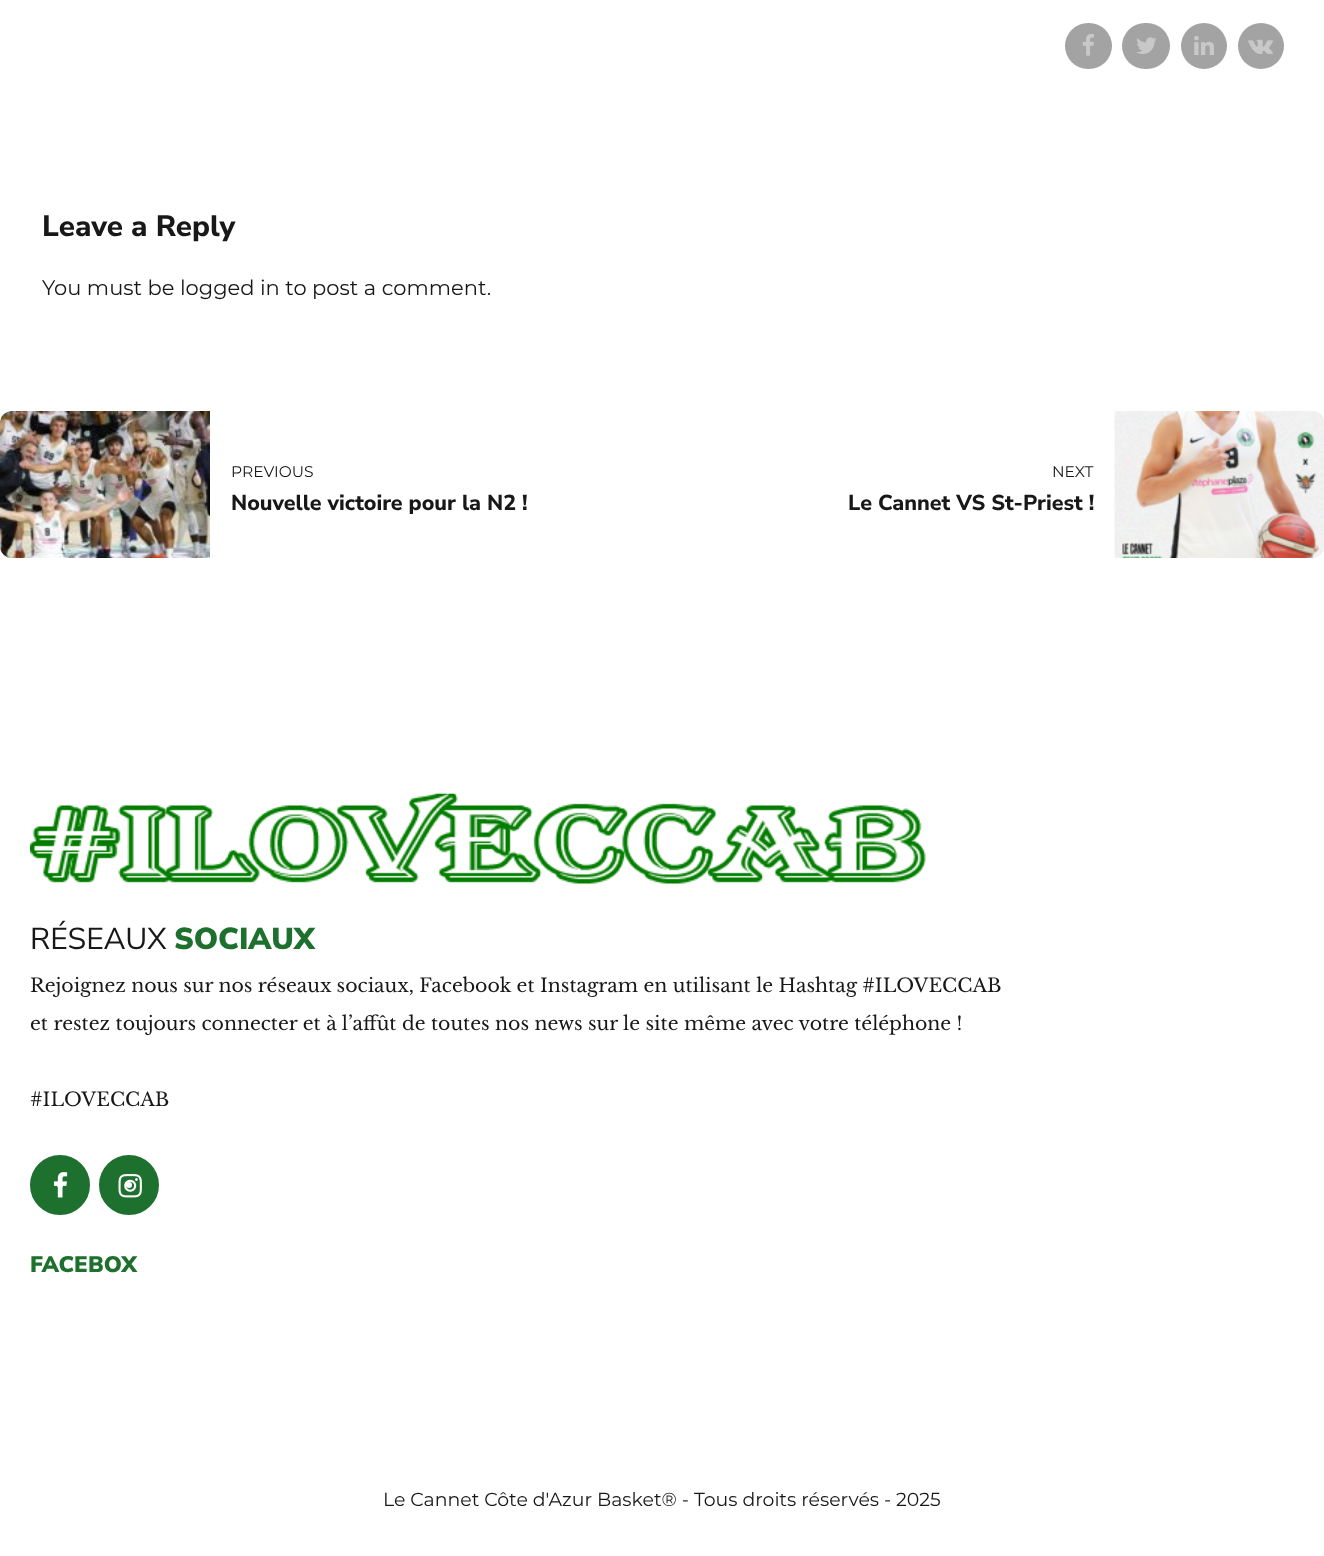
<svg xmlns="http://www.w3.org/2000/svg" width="1324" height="1556">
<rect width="100%" height="100%" fill="#fff"/>
<rect x="1065" y="23" width="47" height="46" rx="23" fill="#a3a3a3"/>
<image x="1082" y="34" width="12" height="22" href="media/1.png"/>
<rect x="1122" y="23" width="48" height="46" rx="23" fill="#a3a3a3"/>
<image x="1136" y="37" width="21" height="17" href="media/2.png"/>
<circle cx="1204" cy="46" r="23" fill="#a3a3a3"/>
<image x="1194" y="36" width="20" height="19" href="media/3.png"/>
<circle cx="1261" cy="46" r="23" fill="#a3a3a3"/>
<image x="1248" y="39" width="25" height="15" href="media/4.png"/>
<text x="42" y="236" style="font-family:Nunito Sans;font-size:29.5px;font-weight:800;fill:#181818">Leave a Reply</text>
<text x="42" y="295" style="font-family:Montserrat;font-size:21px;fill:#181818">You must be logged in to post a comment.</text>
<image x="0" y="411" width="210" height="147" href="media/5.png"/>
<text x="231" y="477" style="font-family:Montserrat;font-size:15.5px;fill:#181818">PREVIOUS</text>
<text x="231" y="510" style="font-family:Nunito Sans;font-size:21.5px;font-weight:800;fill:#181818">Nouvelle victoire pour la N2 !</text>
<text x="1052" y="477" style="font-family:Montserrat;font-size:15.5px;fill:#181818">NEXT</text>
<text x="848" y="510" style="font-family:Nunito Sans;font-size:21.5px;font-weight:800;fill:#181818">Le Cannet VS St-Priest !</text>
<image x="1114" y="411" width="210" height="147" href="media/6.png"/>
<image x="30" y="793" width="896" height="91" href="media/7.png"/>
<text x="30" y="949" style="font-family:Nunito Sans;font-size:30.25px;fill:#181818">RÉSEAUX</text>
<text x="174" y="949" style="font-family:Nunito Sans;font-size:30.25px;font-weight:900;fill:#1d702d">SOCIAUX</text>
<text x="30" y="992" style="font-family:Libre Baskerville;font-size:18.9px;fill:#181818">Rejoignez nous sur nos réseaux sociaux, Facebook et Instagram en utilisant le Hashtag #ILOVECCAB</text>
<text x="30" y="1030" style="font-family:Libre Baskerville;font-size:18.9px;fill:#181818">et restez toujours connecter et à l’affût de toutes nos news sur le site même avec votre téléphone !</text>
<text x="30" y="1106" style="font-family:Libre Baskerville;font-size:18.9px;fill:#181818">#ILOVECCAB</text>
<circle cx="60" cy="1185" r="16.5" fill="none" stroke="#1d702d" stroke-width="27"/>
<image x="53" y="1172" width="15" height="26" href="media/8.png"/>
<circle cx="129" cy="1185" r="16.5" fill="none" stroke="#1d702d" stroke-width="27"/>
<image x="118" y="1174" width="24" height="24" href="media/9.png"/>
<text x="30" y="1272" style="font-family:Nunito Sans;font-size:22.5px;font-weight:900;fill:#1d702d">FACEBOX</text>
<text x="383" y="1506" style="font-family:Montserrat;font-size:18.9px;fill:#181818">Le Cannet Côte d'Azur Basket® - Tous droits réservés - 2025</text>
</svg>
